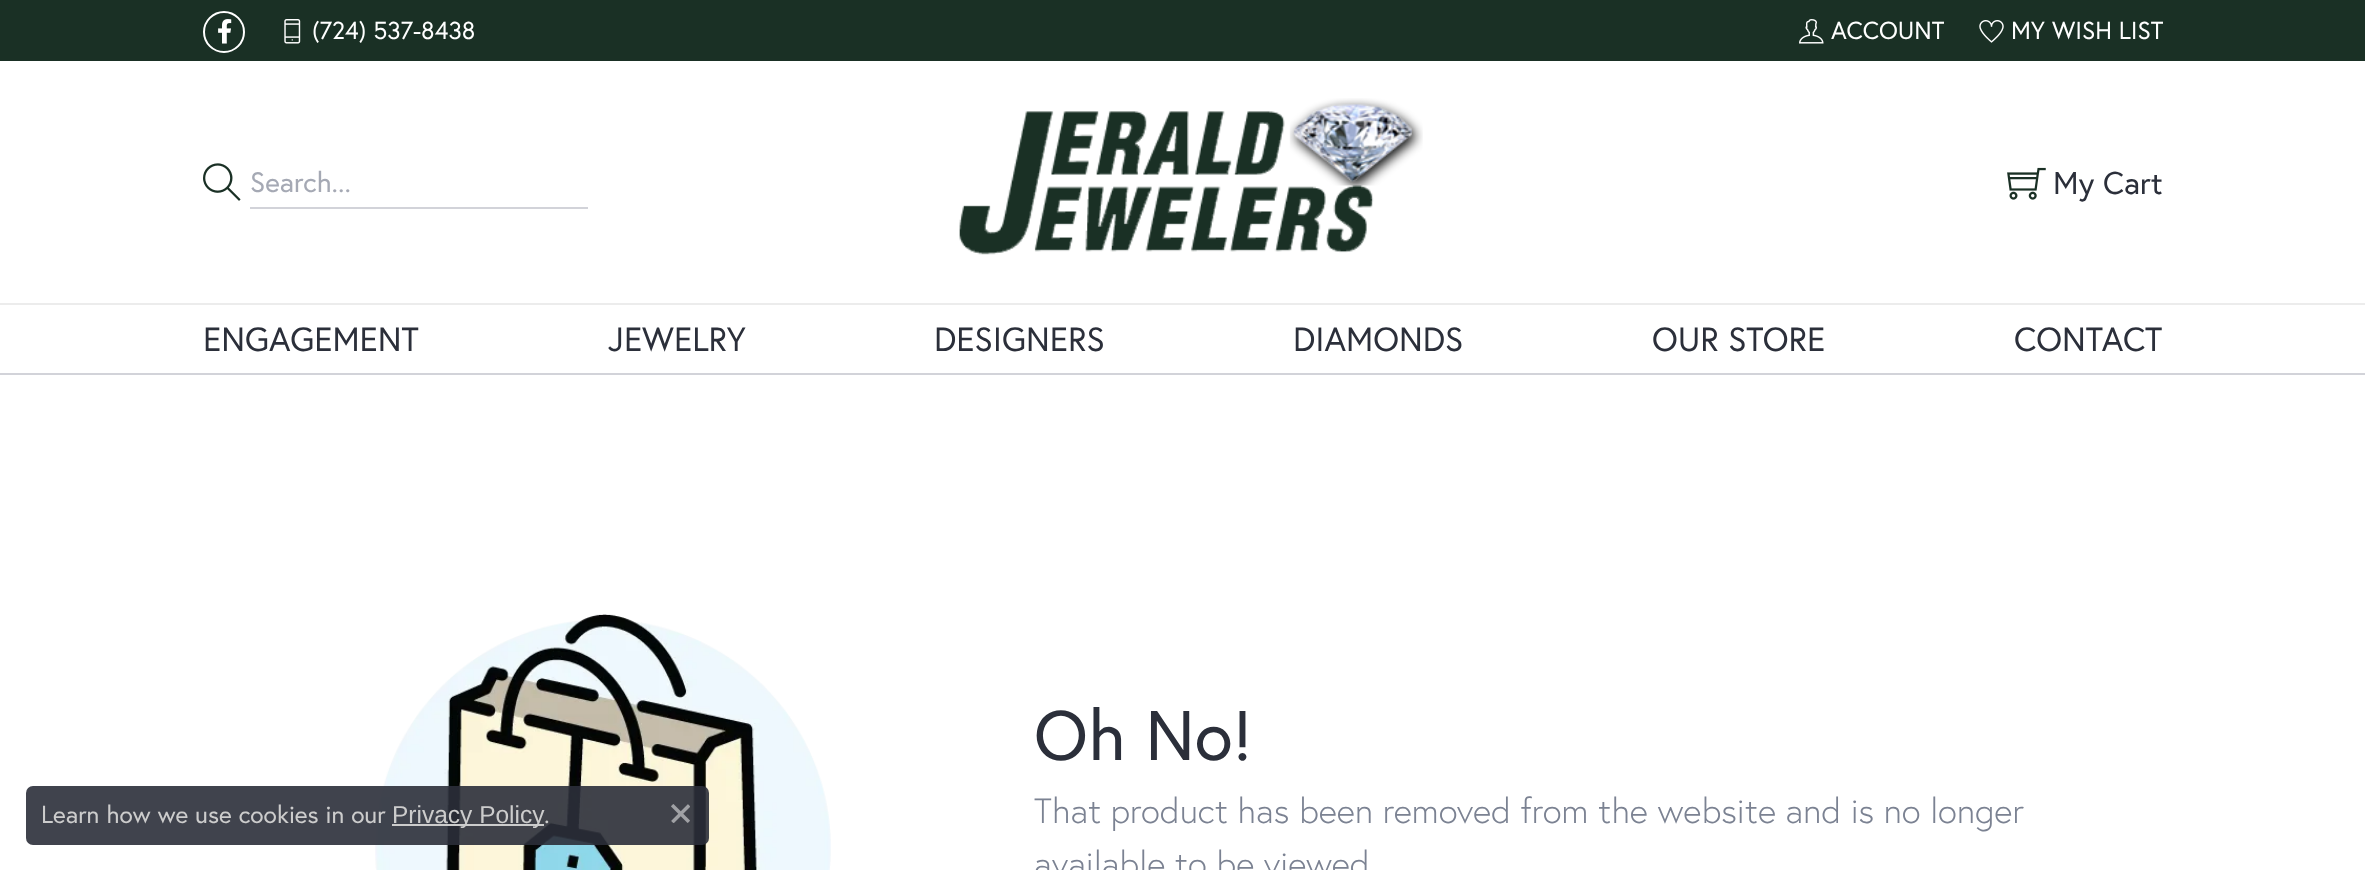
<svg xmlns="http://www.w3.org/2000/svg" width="2365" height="870">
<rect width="100%" height="100%" fill="#1a3025"/>
<circle cx="224" cy="32" r="20" fill="none" stroke="#fff" stroke-width="2"/>
<image x="218" y="19" width="14" height="25" href="media/1.png"/>
<image x="284" y="19" width="17" height="25" href="media/2.png"/>
<text x="312" y="39" style="font-family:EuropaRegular;font-size:24.5px;fill:#fff">(724) 537-8438</text>
<image x="1799" y="19" width="25" height="25" href="media/3.png"/>
<text x="1831" y="39" style="font-family:EuropaRegular;font-size:24.5px;fill:#fff">ACCOUNT</text>
<image x="1979" y="20" width="25" height="23" href="media/4.png"/>
<text x="2011" y="39" style="font-family:EuropaRegular;font-size:24.5px;fill:#fff">MY WISH LIST</text>
<rect y="61" width="2365" height="242" fill="#fff"/>
<image x="203" y="163" width="38" height="38" href="media/5.png"/>
<rect x="250" y="207" width="338" height="2" fill="#d2d3d9"/>
<text x="250" y="192" style="font-family:EuropaRegular;font-size:28px;fill:#a5a9b4">Search...</text>
<image x="959" y="98" width="464" height="157" href="media/6.png"/>
<image x="2007" y="167" width="39" height="33" href="media/7.png"/>
<text x="2053" y="194" style="font-family:EuropaRegular;font-size:31.5px;fill:#2b2f3a">My Cart</text>
<rect y="305" width="2365" height="68" fill="#fff"/>
<rect y="303" width="2365" height="2" fill="#ececec"/>
<rect y="373" width="2365" height="2" fill="#d2d3d9"/>
<text x="203" y="351" style="font-family:EuropaRegular;font-size:33.5px;fill:#2b2f3a">ENGAGEMENT</text>
<text x="608" y="351" style="font-family:EuropaRegular;font-size:33.5px;fill:#2b2f3a">JEWELRY</text>
<text x="934" y="351" style="font-family:EuropaRegular;font-size:33.5px;fill:#2b2f3a">DESIGNERS</text>
<text x="1293" y="351" style="font-family:EuropaRegular;font-size:33.5px;fill:#2b2f3a">DIAMONDS</text>
<text x="1652" y="351" style="font-family:EuropaRegular;font-size:33.5px;fill:#2b2f3a">OUR STORE</text>
<text x="2014" y="351" style="font-family:EuropaRegular;font-size:33.5px;fill:#2b2f3a">CONTACT</text>
<rect y="375" width="2365" height="495" fill="#fff"/>
<image x="375" y="614" width="456" height="256" href="media/9.png"/>
<rect x="26" y="786" width="683" height="59" rx="7" fill="#2b2f3ae6"/>
<text x="41" y="823" style="font-family:EuropaRegular;font-size:24.5px;fill:#ccc">Learn how we use cookies in our</text>
<rect x="392" y="824" width="152" height="2" fill="#ccc"/>
<text x="392" y="823" style="font-family:Liberation Sans;font-size:24.5px;fill:#ccc">Privacy Policy</text>
<text x="544" y="823" style="font-family:EuropaRegular;font-size:24.5px;fill:#ccc">.</text>
<image x="671" y="804" width="19" height="19" href="media/8.png"/>
<text x="1034" y="760" style="font-family:EuropaRegular;font-size:70px;fill:#2b2f3a">Oh No!</text>
<text x="1034" y="823" style="font-family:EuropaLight;font-size:35px;font-weight:300;fill:#7b8292">That product has been removed from the website and is no longer</text>
<text x="1034" y="876" style="font-family:EuropaLight;font-size:35px;font-weight:300;fill:#7b8292">available to be viewed</text>
</svg>
